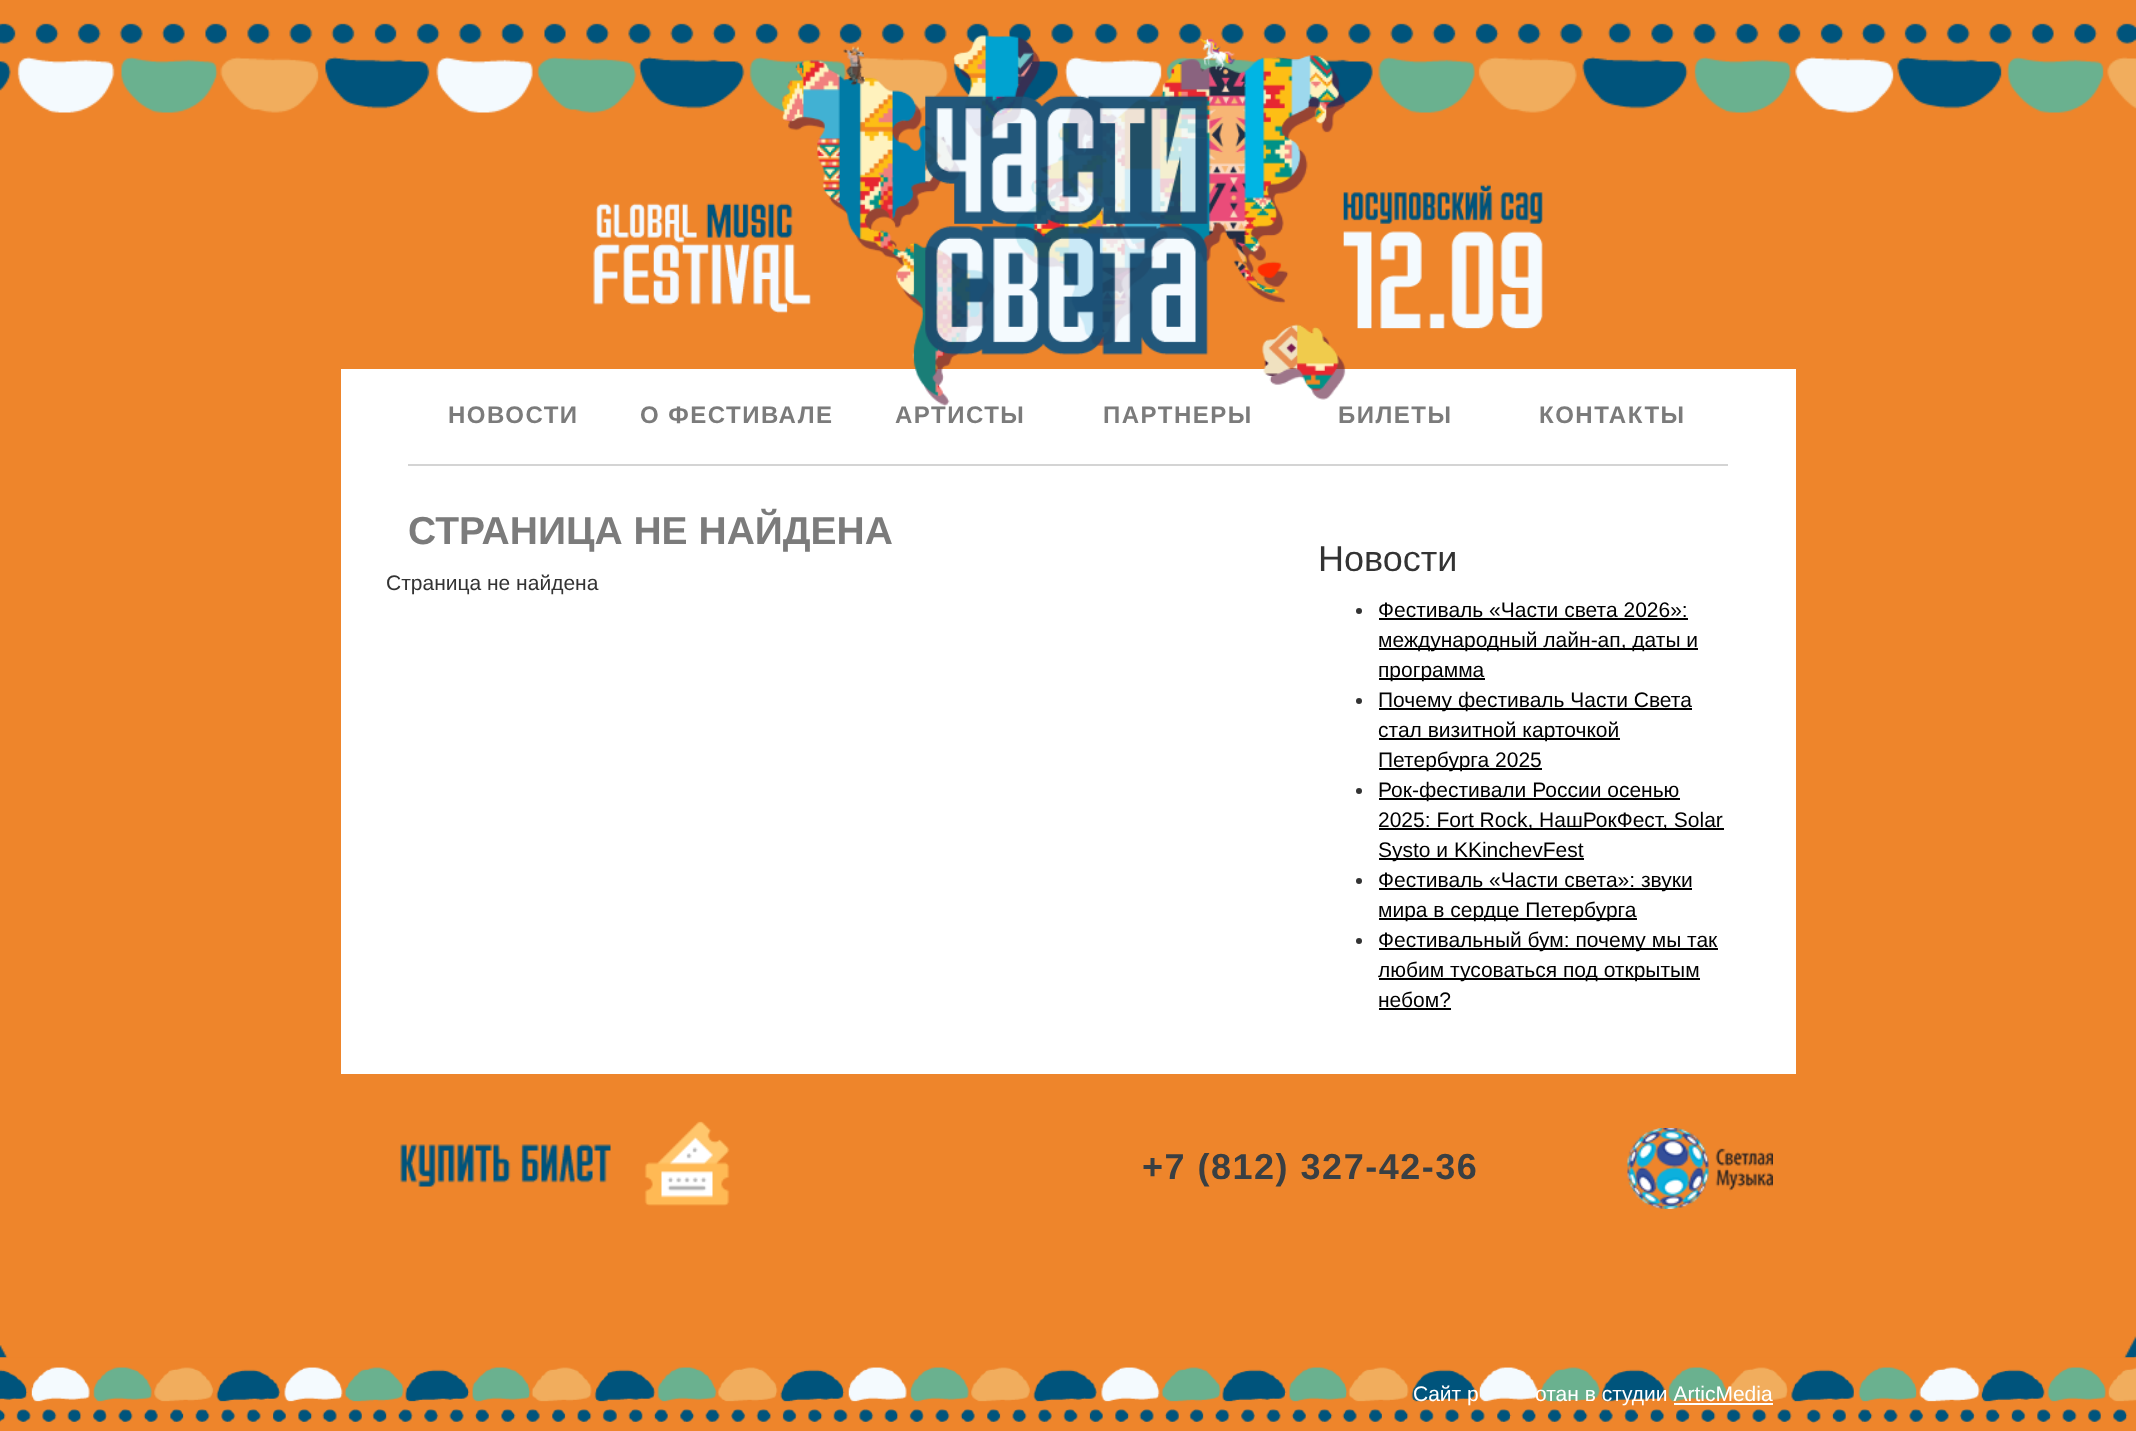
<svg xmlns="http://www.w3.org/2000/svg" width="2136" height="1431">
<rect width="100%" height="100%" fill="#fff"/>
<image x="0" y="0" width="2136" height="1358" href="media/1.png"/>
<rect x="341" y="369" width="1455" height="705" fill="#fff"/>
<image x="593" y="35" width="950" height="371" href="media/2.png"/>
<rect x="408" y="464" width="1320" height="2" fill="#d4d4d4"/>
<text x="448" y="423" style="font-family:Liberation Sans;font-size:24px;font-weight:bold;letter-spacing:1.5px;fill:#7b7b7b">НОВОСТИ</text>
<text x="640" y="423" style="font-family:Liberation Sans;font-size:24px;font-weight:bold;letter-spacing:1.5px;fill:#7b7b7b">О ФЕСТИВАЛЕ</text>
<text x="895" y="423" style="font-family:Liberation Sans;font-size:24px;font-weight:bold;letter-spacing:1.5px;fill:#7b7b7b">АРТИСТЫ</text>
<text x="1103" y="423" style="font-family:Liberation Sans;font-size:24px;font-weight:bold;letter-spacing:1.5px;fill:#7b7b7b">ПАРТНЕРЫ</text>
<text x="1338" y="423" style="font-family:Liberation Sans;font-size:24px;font-weight:bold;letter-spacing:1.5px;fill:#7b7b7b">БИЛЕТЫ</text>
<text x="1539" y="423" style="font-family:Liberation Sans;font-size:24px;font-weight:bold;letter-spacing:1.5px;fill:#7b7b7b">КОНТАКТЫ</text>
<text x="408" y="544" style="font-family:Liberation Sans;font-size:39px;font-weight:bold;fill:#7b7b7b">СТРАНИЦА НЕ НАЙДЕНА</text>
<text x="386" y="590" style="font-family:Liberation Sans;font-size:21px;fill:#333">Страница не найдена</text>
<text x="1318" y="571" style="font-family:Liberation Sans;font-size:36px;fill:#333">Новости</text>
<circle cx="1359" cy="611" r="3" fill="#333"/>
<text x="1378" y="617" style="font-family:Liberation Sans;font-size:21px;fill:#000">Фестиваль «Части света 2026»:</text>
<rect x="1379" y="618" width="309" height="2" fill="#000"/>
<rect x="1379" y="648" width="319" height="2" fill="#000"/>
<text x="1378" y="647" style="font-family:Liberation Sans;font-size:21px;fill:#000">международный лайн-ап, даты и</text>
<rect x="1379" y="678" width="106" height="2" fill="#000"/>
<text x="1378" y="677" style="font-family:Liberation Sans;font-size:21px;fill:#000">программа</text>
<circle cx="1359" cy="701" r="3" fill="#333"/>
<rect x="1379" y="708" width="313" height="2" fill="#000"/>
<text x="1378" y="707" style="font-family:Liberation Sans;font-size:21px;fill:#000">Почему фестиваль Части Света</text>
<rect x="1379" y="738" width="241" height="2" fill="#000"/>
<text x="1378" y="737" style="font-family:Liberation Sans;font-size:21px;fill:#000">стал визитной карточкой</text>
<rect x="1379" y="768" width="163" height="2" fill="#000"/>
<text x="1378" y="767" style="font-family:Liberation Sans;font-size:21px;fill:#000">Петербурга 2025</text>
<circle cx="1359" cy="791" r="3" fill="#333"/>
<rect x="1379" y="798" width="301" height="2" fill="#000"/>
<text x="1378" y="797" style="font-family:Liberation Sans;font-size:21px;fill:#000">Рок-фестивали России осенью</text>
<rect x="1379" y="828" width="345" height="2" fill="#000"/>
<text x="1378" y="827" style="font-family:Liberation Sans;font-size:21px;fill:#000">2025: Fort Rock, НашРокФест, Solar</text>
<rect x="1379" y="858" width="205" height="2" fill="#000"/>
<text x="1378" y="857" style="font-family:Liberation Sans;font-size:21px;fill:#000">Systo и KKinchevFest</text>
<circle cx="1359" cy="881" r="3" fill="#333"/>
<rect x="1379" y="888" width="313" height="2" fill="#000"/>
<text x="1378" y="887" style="font-family:Liberation Sans;font-size:21px;fill:#000">Фестиваль «Части света»: звуки</text>
<rect x="1379" y="918" width="258" height="2" fill="#000"/>
<text x="1378" y="917" style="font-family:Liberation Sans;font-size:21px;fill:#000">мира в сердце Петербурга</text>
<circle cx="1359" cy="941" r="3" fill="#333"/>
<rect x="1379" y="948" width="339" height="2" fill="#000"/>
<text x="1378" y="947" style="font-family:Liberation Sans;font-size:21px;fill:#000">Фестивальный бум: почему мы так</text>
<rect x="1379" y="978" width="321" height="2" fill="#000"/>
<text x="1378" y="977" style="font-family:Liberation Sans;font-size:21px;fill:#000">любим тусоваться под открытым</text>
<text x="1378" y="1007" style="font-family:Liberation Sans;font-size:21px;fill:#000">небом?</text>
<rect x="1379" y="1008" width="72" height="2" fill="#000"/>
<image x="400" y="1121" width="330" height="85" href="media/3.png"/>
<text x="1142" y="1179" style="font-family:Liberation Sans;font-size:36px;font-weight:bold;letter-spacing:1.5px;fill:#393f43">+7 (812) 327-42-36</text>
<image x="1627" y="1128" width="146" height="81" href="media/4.png"/>
<image x="0" y="1357" width="2136" height="74" href="media/5.png"/>
<text x="1413" y="1401" style="font-family:Liberation Sans;font-size:21px;fill:#fff">Cайт р</text>
<text x="1535" y="1401" style="font-family:Liberation Sans;font-size:21px;fill:#fff">отан в студии ArticMedia</text>
<rect x="1674" y="1403" width="99" height="2" fill="#fff"/>
</svg>
